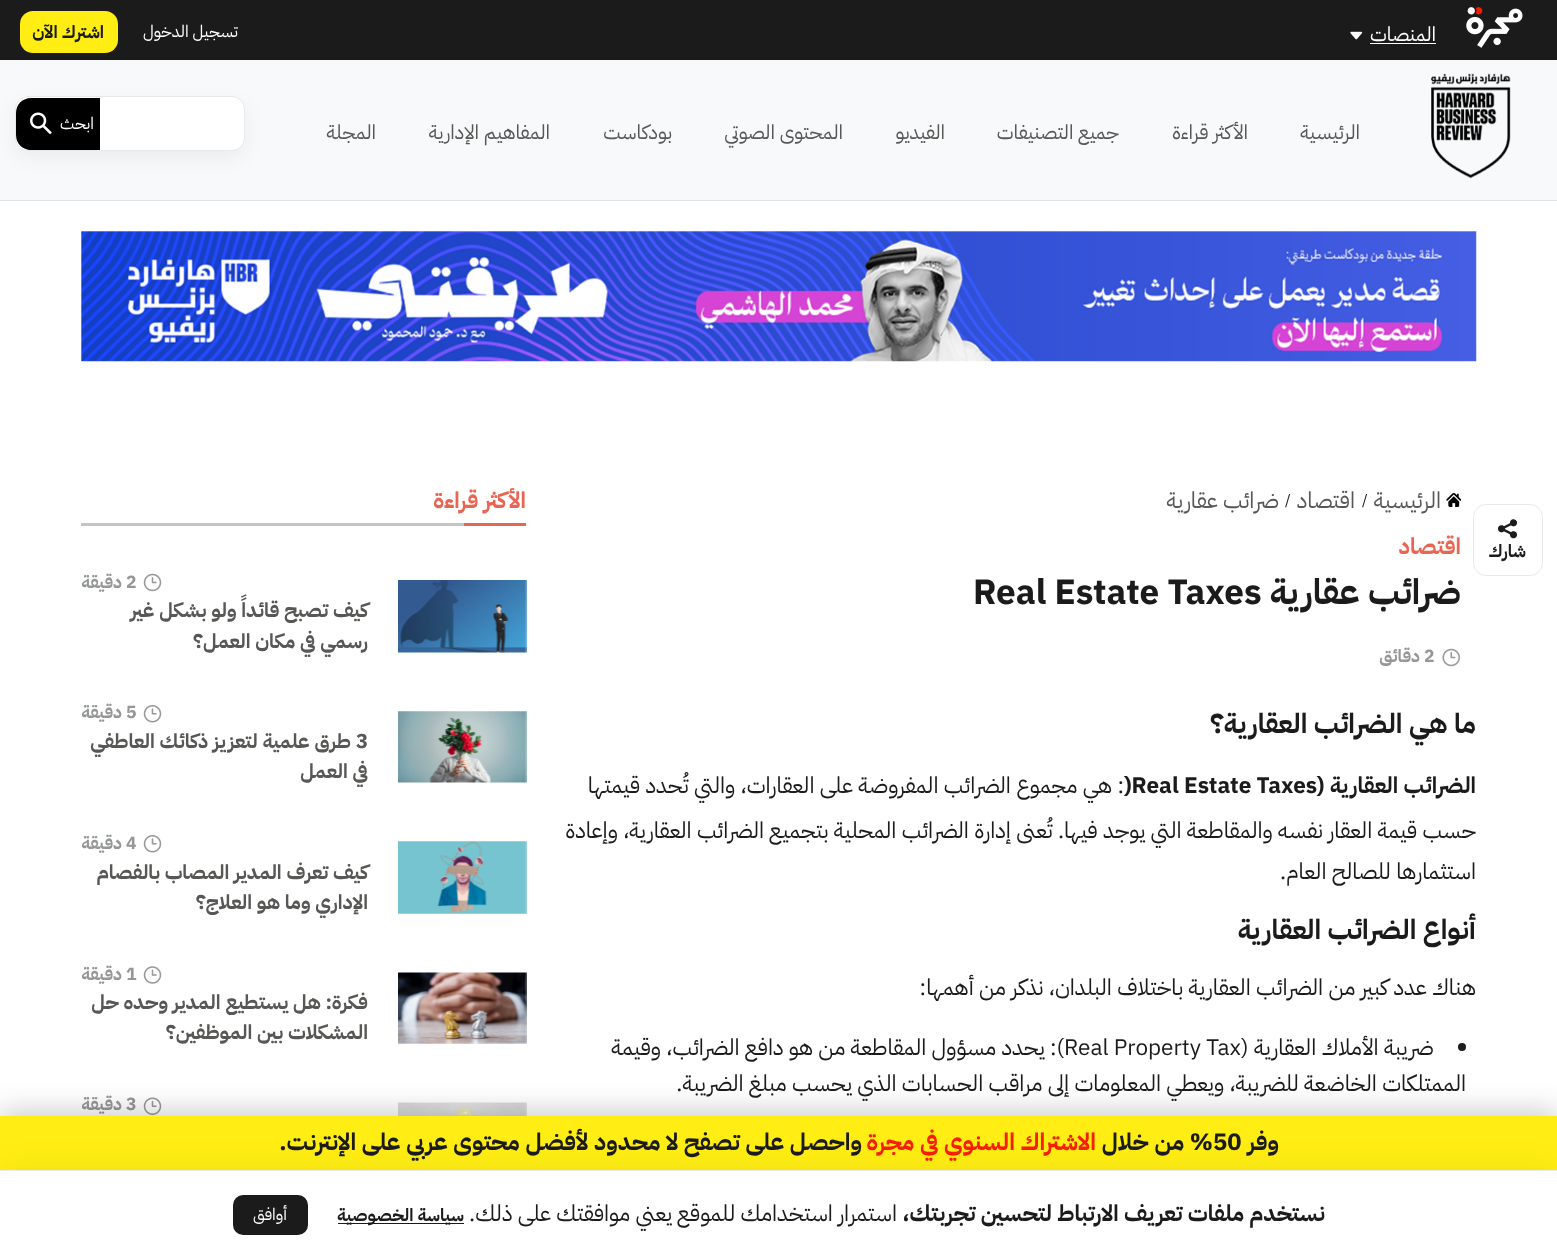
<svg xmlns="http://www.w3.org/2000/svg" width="1557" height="1258">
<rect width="100%" height="100%" fill="#fff"/>
<rect width="1557" height="60" fill="#1b1b1b"/>
<image x="1466" y="7" width="57" height="41" href="media/1.png"/>
<text x="1436" y="41" style="font-family:IBM Plex Sans Arabic;font-size:20px;direction:rtl;fill:#fff">المنصات</text>
<rect x="1370" y="43" width="66" height="1" fill="#fff"/>
<image x="1350" y="31" width="13" height="9" href="media/2.png"/>
<text x="238" y="37" style="font-family:IBM Plex Sans Arabic;font-size:16.5px;direction:rtl;fill:#fff">تسجيل الدخول</text>
<rect x="20" y="11" width="98" height="42" rx="13" fill="#ffed13"/>
<text x="104" y="38" style="font-family:IBM Plex Sans Arabic;font-size:17.5px;font-weight:bold;direction:rtl;fill:#1b1b1c">اشترك الآن</text>
<rect y="60" width="1557" height="140" fill="#f8f9fa"/>
<rect y="200" width="1557" height="1" fill="#e0e1e2"/>
<image x="1431" y="73" width="80" height="106" href="media/3.png"/>
<text x="1360" y="139" style="font-family:IBM Plex Sans Arabic;font-size:20px;direction:rtl;fill:#575756">الرئيسية</text>
<text x="1248" y="139" style="font-family:IBM Plex Sans Arabic;font-size:20px;direction:rtl;fill:#575756">الأكثر قراءة</text>
<text x="1119" y="139" style="font-family:IBM Plex Sans Arabic;font-size:20px;direction:rtl;fill:#575756">جميع التصنيفات</text>
<text x="945" y="139" style="font-family:IBM Plex Sans Arabic;font-size:20px;direction:rtl;fill:#575756">الفيديو</text>
<text x="843" y="139" style="font-family:IBM Plex Sans Arabic;font-size:20px;direction:rtl;fill:#575756">المحتوى الصوتي</text>
<text x="672" y="139" style="font-family:IBM Plex Sans Arabic;font-size:20px;direction:rtl;fill:#575756">بودكاست</text>
<text x="550" y="139" style="font-family:IBM Plex Sans Arabic;font-size:20px;direction:rtl;fill:#575756">المفاهيم الإدارية</text>
<text x="376" y="139" style="font-family:IBM Plex Sans Arabic;font-size:20px;direction:rtl;fill:#575756">المجلة</text>
<rect x="15" y="103" width="230" height="55" rx="13" fill="#0000000d" filter="blur(9.5px)"/>
<rect x="15.5" y="96.5" width="229" height="54" rx="12.5" fill="#fff" stroke="#e8e9ea"/>
<path d="M31 98h69v52h-69c-8.5 0-15-6.5-15-15v-22c0-8.5 6.5-15 15-15z" fill="#000"/>
<text x="94" y="129" style="font-family:IBM Plex Sans Arabic;font-size:16.5px;direction:rtl;fill:#fff">ابحث</text>
<image x="30" y="112" width="22" height="23" href="media/4.png"/>
<image x="81" y="231" width="1396" height="131" href="media/5.png"/>
<rect x="1473.5" y="504.5" width="69" height="71" rx="12.5" fill="none" stroke="#e8e9ea"/>
<image x="1498" y="519" width="20" height="20" href="media/6.png"/>
<text x="1526" y="557" style="font-family:IBM Plex Sans Arabic;font-size:17.5px;font-weight:bold;direction:rtl;fill:#1b1b1c">شارك</text>
<image x="1446" y="493" width="15" height="14" href="media/7.png"/>
<text x="1441" y="508" style="font-family:IBM Plex Sans Arabic;font-size:22.5px;direction:rtl;fill:#575756">الرئيسية</text>
<text x="1362" y="505" style="font-family:IBM Plex Sans Arabic;font-size:15px;fill:#1b1b1c">/</text>
<text x="1355" y="508" style="font-family:IBM Plex Sans Arabic;font-size:22.5px;direction:rtl;fill:#575756">اقتصاد</text>
<text x="1285" y="505" style="font-family:IBM Plex Sans Arabic;font-size:15px;fill:#1b1b1c">/</text>
<text x="1279" y="508" style="font-family:IBM Plex Sans Arabic;font-size:22.5px;direction:rtl;fill:#575756">ضرائب عقارية</text>
<text x="1461" y="554" style="font-family:IBM Plex Sans Arabic;font-size:22.5px;font-weight:bold;direction:rtl;fill:#e96552">اقتصاد</text>
<text x="1461" y="604" style="font-family:IBM Plex Sans Arabic;font-size:35px;font-weight:bold;direction:rtl;fill:#1b1b1c">ضرائب عقارية</text>
<text x="973" y="604" style="font-family:IBM Plex Sans Arabic;font-size:35px;font-weight:bold;fill:#1b1b1c">Real Estate Taxes</text>
<image x="1442" y="648" width="18" height="19" href="media/8.png"/>
<text x="1424" y="662" style="font-family:IBM Plex Sans Arabic;font-size:17.5px;font-weight:bold;fill:#959697">2</text>
<text x="1420" y="662" style="font-family:IBM Plex Sans Arabic;font-size:17.5px;font-weight:bold;direction:rtl;fill:#959697">دقائق</text>
<text x="1476" y="733" style="font-family:IBM Plex Sans Arabic;font-size:27.5px;font-weight:bold;direction:rtl;fill:#1b1b1c">ما هي الضرائب العقارية؟</text>
<text x="1124" y="793" style="font-family:IBM Plex Sans Arabic;font-size:22.5px;font-weight:bold;fill:#1b1b1c">)Real Estate Taxes</text>
<text x="1476" y="793" style="font-family:IBM Plex Sans Arabic;font-size:22.5px;font-weight:bold;direction:rtl;fill:#1b1b1c">الضرائب العقارية (</text>
<text x="1124" y="793" style="font-family:IBM Plex Sans Arabic;font-size:22.5px;direction:rtl;fill:#1b1b1c">: هي مجموع الضرائب المفروضة على العقارات، والتي تُحدد قيمتها</text>
<text x="1476" y="838" style="font-family:IBM Plex Sans Arabic;font-size:22.5px;direction:rtl;fill:#1b1b1c">حسب قيمة العقار نفسه والمقاطعة التي يوجد فيها. تُعنى إدارة الضرائب المحلية بتجميع الضرائب العقارية، وإعادة</text>
<text x="1476" y="879" style="font-family:IBM Plex Sans Arabic;font-size:22.5px;direction:rtl;fill:#1b1b1c">استثمارها للصالح العام.</text>
<text x="1476" y="939" style="font-family:IBM Plex Sans Arabic;font-size:27.5px;font-weight:bold;direction:rtl;fill:#1b1b1c">أنواع الضرائب العقارية</text>
<text x="1476" y="995" style="font-family:IBM Plex Sans Arabic;font-size:22.5px;direction:rtl;fill:#1b1b1c">هناك عدد كبير من الضرائب العقارية باختلاف البلدان، نذكر من أهمها:</text>
<circle cx="1462" cy="1047" r="4" fill="#1b1b1c"/>
<text x="1064" y="1055" style="font-family:IBM Plex Sans Arabic;font-size:22.5px;fill:#1b1b1c">Real Property Tax</text>
<text x="1434" y="1055" style="font-family:IBM Plex Sans Arabic;font-size:22.5px;direction:rtl;fill:#1b1b1c">ضريبة الأملاك العقارية (</text>
<text x="1064" y="1055" style="font-family:IBM Plex Sans Arabic;font-size:22.5px;direction:rtl;fill:#1b1b1c">): يحدد مسؤول المقاطعة من هو دافع الضرائب، وقيمة</text>
<text x="1466" y="1091" style="font-family:IBM Plex Sans Arabic;font-size:22.5px;direction:rtl;fill:#1b1b1c">الممتلكات الخاضعة للضريبة، ويعطي المعلومات إلى مراقب الحسابات الذي يحسب مبلغ الضريبة.</text>
<rect x="81" y="523" width="383" height="3" fill="#c3c4c7"/>
<text x="526" y="508" style="font-family:IBM Plex Sans Arabic;font-size:22.5px;font-weight:bold;direction:rtl;fill:#e96552">الأكثر قراءة</text>
<rect x="464" y="523" width="62" height="3" fill="#e96552"/>
<image x="398" y="580" width="129" height="73" href="media/9.png"/>
<image x="143" y="573" width="19" height="19" href="media/10.png"/>
<text x="126" y="588" style="font-family:IBM Plex Sans Arabic;font-size:17.5px;font-weight:bold;fill:#959697">2</text>
<text x="122" y="588" style="font-family:IBM Plex Sans Arabic;font-size:17.5px;font-weight:bold;direction:rtl;fill:#959697">دقيقة</text>
<text x="368" y="617" style="font-family:IBM Plex Sans Arabic;font-size:20px;font-weight:bold;direction:rtl;fill:#575756">كيف تصبح قائداً ولو بشكل غير</text>
<text x="368" y="648" style="font-family:IBM Plex Sans Arabic;font-size:20px;font-weight:bold;direction:rtl;fill:#575756">رسمي في مكان العمل؟</text>
<image x="398" y="711" width="129" height="72" href="media/11.png"/>
<image x="143" y="705" width="19" height="18" href="media/12.png"/>
<text x="126" y="718" style="font-family:IBM Plex Sans Arabic;font-size:17.5px;font-weight:bold;fill:#959697">5</text>
<text x="122" y="718" style="font-family:IBM Plex Sans Arabic;font-size:17.5px;font-weight:bold;direction:rtl;fill:#959697">دقيقة</text>
<text x="356" y="748" style="font-family:IBM Plex Sans Arabic;font-size:20px;font-weight:bold;fill:#575756">3</text>
<text x="351" y="748" style="font-family:IBM Plex Sans Arabic;font-size:20px;font-weight:bold;direction:rtl;fill:#575756">طرق علمية لتعزيز ذكائك العاطفي</text>
<text x="368" y="778" style="font-family:IBM Plex Sans Arabic;font-size:20px;font-weight:bold;direction:rtl;fill:#575756">في العمل</text>
<image x="398" y="841" width="129" height="73" href="media/13.png"/>
<image x="143" y="835" width="19" height="18" href="media/12.png"/>
<text x="126" y="849" style="font-family:IBM Plex Sans Arabic;font-size:17.5px;font-weight:bold;fill:#959697">4</text>
<text x="122" y="849" style="font-family:IBM Plex Sans Arabic;font-size:17.5px;font-weight:bold;direction:rtl;fill:#959697">دقيقة</text>
<text x="368" y="879" style="font-family:IBM Plex Sans Arabic;font-size:20px;font-weight:bold;direction:rtl;fill:#575756">كيف تعرف المدير المصاب بالفصام</text>
<text x="368" y="909" style="font-family:IBM Plex Sans Arabic;font-size:20px;font-weight:bold;direction:rtl;fill:#575756">الإداري وما هو العلاج؟</text>
<image x="398" y="972" width="129" height="72" href="media/14.png"/>
<image x="143" y="966" width="19" height="18" href="media/15.png"/>
<text x="126" y="980" style="font-family:IBM Plex Sans Arabic;font-size:17.5px;font-weight:bold;fill:#959697">1</text>
<text x="122" y="980" style="font-family:IBM Plex Sans Arabic;font-size:17.5px;font-weight:bold;direction:rtl;fill:#959697">دقيقة</text>
<text x="368" y="1009" style="font-family:IBM Plex Sans Arabic;font-size:20px;font-weight:bold;direction:rtl;fill:#575756">فكرة: هل يستطيع المدير وحده حل</text>
<text x="368" y="1039" style="font-family:IBM Plex Sans Arabic;font-size:20px;font-weight:bold;direction:rtl;fill:#575756">المشكلات بين الموظفين؟</text>
<image x="398" y="1102" width="129" height="14" href="media/16.png"/>
<image x="143" y="1097" width="19" height="18" href="media/17.png"/>
<text x="126" y="1110" style="font-family:IBM Plex Sans Arabic;font-size:17.5px;font-weight:bold;fill:#959697">3</text>
<text x="122" y="1110" style="font-family:IBM Plex Sans Arabic;font-size:17.5px;font-weight:bold;direction:rtl;fill:#959697">دقيقة</text>
<rect y="1113" width="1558" height="53" fill="#1b1b1c40" filter="blur(15px)"/>
<rect y="1116" width="1557" height="54" fill="#ffed13"/>
<rect y="1168" width="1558" height="88" fill="#1b1b1c0f" filter="blur(15px)"/>
<text x="1279" y="1150" style="font-family:IBM Plex Sans Arabic;font-size:23.75px;font-weight:bold;direction:rtl;fill:#1b1b1c">وفر</text>
<text x="1213" y="1150" style="font-family:IBM Plex Sans Arabic;font-size:23.75px;font-weight:bold;fill:#1b1b1c">50</text>
<text x="1213" y="1150" style="font-family:IBM Plex Sans Arabic;font-size:23.75px;font-weight:bold;direction:rtl;fill:#1b1b1c">% من خلال</text>
<text x="1096" y="1150" style="font-family:IBM Plex Sans Arabic;font-size:23.75px;font-weight:bold;direction:rtl;fill:#f51e00">الاشتراك السنوي في مجرة</text>
<text x="862" y="1150" style="font-family:IBM Plex Sans Arabic;font-size:23.75px;font-weight:bold;direction:rtl;fill:#1b1b1c">واحصل على تصفح لا محدود لأفضل محتوى عربي على الإنترنت.</text>
<rect y="1171" width="1557" height="87" fill="#fff"/>
<rect y="1170" width="1557" height="1" fill="#e8e9ea"/>
<text x="1325" y="1221" style="font-family:IBM Plex Sans Arabic;font-size:22.5px;font-weight:bold;direction:rtl;fill:#1b1b1c">نستخدم ملفات تعريف الارتباط لتحسين تجربتك،</text>
<text x="897" y="1221" style="font-family:IBM Plex Sans Arabic;font-size:22.5px;direction:rtl;fill:#1b1b1c">استمرار استخدامك للموقع يعني موافقتك على ذلك.</text>
<rect x="338" y="1223" width="126" height="1" fill="#1b1b1b"/>
<text x="464" y="1221" style="font-family:IBM Plex Sans Arabic;font-size:17.5px;font-weight:bold;direction:rtl;fill:#1b1b1c">سياسة الخصوصية</text>
<rect x="233" y="1195" width="75" height="40" rx="10" fill="#1b1b1b"/>
<text x="287" y="1220" style="font-family:IBM Plex Sans Arabic;font-size:16.5px;direction:rtl;fill:#fff">أوافق</text>
</svg>
